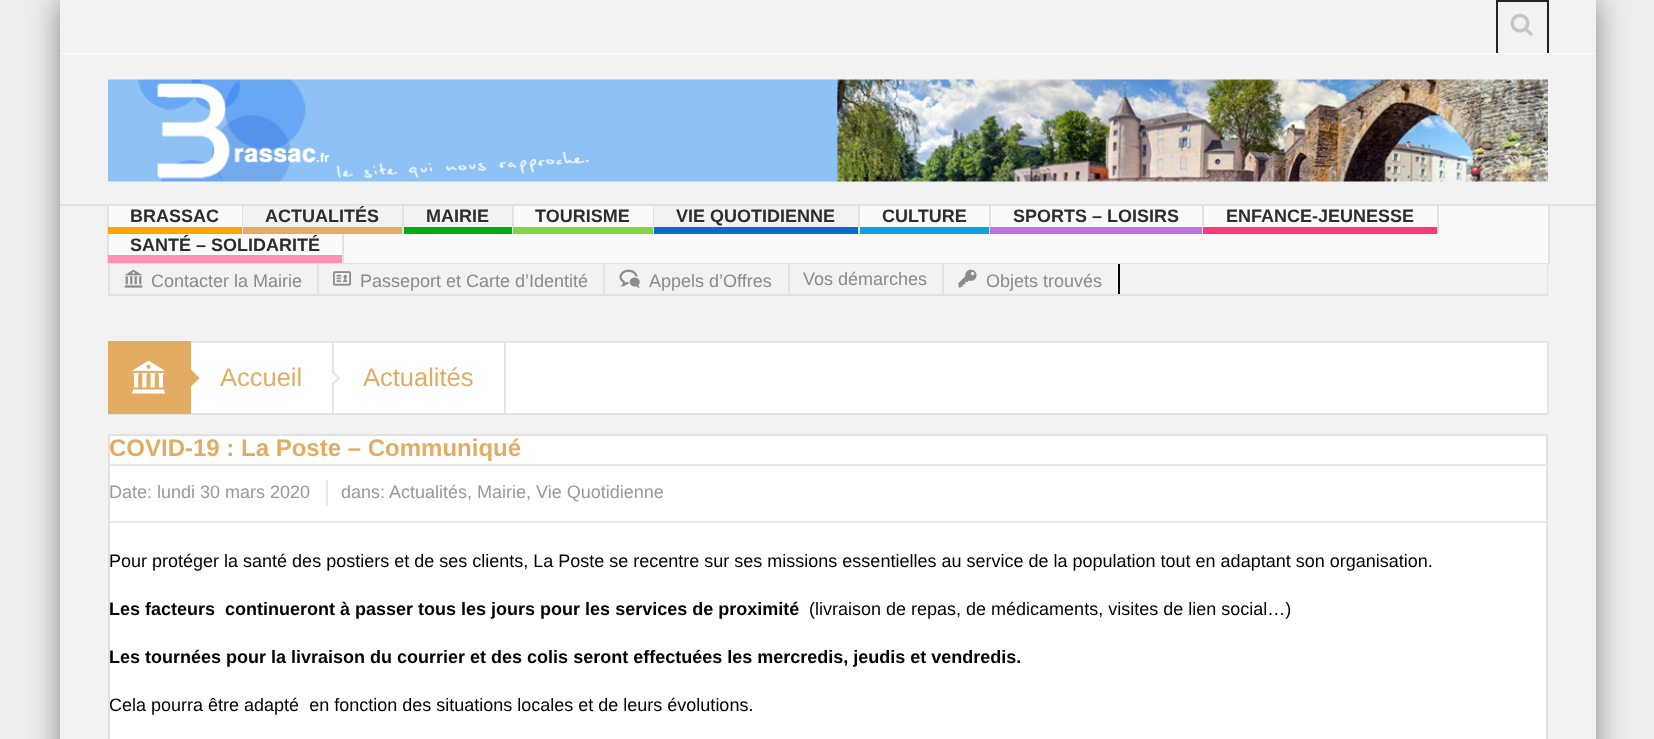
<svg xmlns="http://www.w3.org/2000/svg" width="1654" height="739">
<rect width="100%" height="100%" fill="#eee"/>
<rect x="60" width="1536" height="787" fill="#00000070" filter="blur(16px)"/>
<rect x="60" width="1536" height="739" fill="#f2f2f2"/>
<rect x="60" y="53" width="1536" height="1" fill="#fff"/>
<rect x="1496" width="52" height="2" fill="#222"/>
<rect x="1547" width="2" height="53" fill="#222"/>
<rect x="1496" width="2" height="53" fill="#222"/>
<image x="1510" y="13" width="23" height="23" href="media/1.png"/>
<rect x="60" y="204" width="1536" height="2" fill="#e1e1e1"/>
<image x="108" y="79" width="1440" height="103" href="media/2.png"/>
<rect x="109" y="206" width="1439" height="57" fill="#fafafa"/>
<rect x="1548" y="206" width="2" height="58" fill="#e1e1e1"/>
<rect x="107" y="263" width="1443" height="2" fill="#e1e1e1"/>
<rect x="107" y="206" width="2" height="58" fill="#e1e1e1"/>
<rect x="242" y="206" width="1" height="28" fill="#e1e1e1"/>
<text x="130" y="222" style="font-family:Liberation Sans;font-size:18px;font-weight:bold;fill:#2d2d2d">BRASSAC</text>
<rect x="108" y="227" width="134" height="7" fill="#ffa500"/>
<rect x="243" y="206" width="159" height="21" fill="#f2f2f2"/>
<rect x="402" y="206" width="2" height="28" fill="#e1e1e1"/>
<text x="265" y="222" style="font-family:Liberation Sans;font-size:18px;font-weight:bold;fill:#2d2d2d">ACTUALITÉS</text>
<rect x="243" y="227" width="159" height="7" fill="#e2ad63"/>
<rect x="404" y="206" width="108" height="21" fill="#f2f2f2"/>
<rect x="512" y="206" width="2" height="28" fill="#e1e1e1"/>
<text x="426" y="222" style="font-family:Liberation Sans;font-size:18px;font-weight:bold;fill:#2d2d2d">MAIRIE</text>
<rect x="404" y="227" width="108" height="7" fill="#00ad14"/>
<rect x="653" y="206" width="1" height="28" fill="#e1e1e1"/>
<text x="535" y="222" style="font-family:Liberation Sans;font-size:18px;font-weight:bold;fill:#2d2d2d">TOURISME</text>
<rect x="513" y="227" width="140" height="7" fill="#81d742"/>
<rect x="654" y="206" width="204" height="21" fill="#f2f2f2"/>
<rect x="858" y="206" width="2" height="28" fill="#e1e1e1"/>
<text x="676" y="222" style="font-family:Liberation Sans;font-size:18px;font-weight:bold;fill:#2d2d2d">VIE QUOTIDIENNE</text>
<rect x="654" y="227" width="204" height="7" fill="#0a6bcc"/>
<rect x="989" y="206" width="2" height="28" fill="#e1e1e1"/>
<text x="882" y="222" style="font-family:Liberation Sans;font-size:18px;font-weight:bold;fill:#2d2d2d">CULTURE</text>
<rect x="860" y="227" width="129" height="7" fill="#0ba3e0"/>
<rect x="1202" y="206" width="2" height="28" fill="#e1e1e1"/>
<text x="1013" y="222" style="font-family:Liberation Sans;font-size:18px;font-weight:bold;fill:#2d2d2d">SPORTS – LOISIRS</text>
<rect x="990" y="227" width="212" height="7" fill="#c170ea"/>
<rect x="1437" y="206" width="2" height="28" fill="#e1e1e1"/>
<text x="1226" y="222" style="font-family:Liberation Sans;font-size:18px;font-weight:bold;fill:#2d2d2d">ENFANCE-JEUNESSE</text>
<rect x="1203" y="227" width="234" height="7" fill="#ff387a"/>
<rect x="342" y="234" width="2" height="29" fill="#e1e1e1"/>
<text x="130" y="251" style="font-family:Liberation Sans;font-size:18px;font-weight:bold;fill:#2d2d2d">SANTÉ – SOLIDARITÉ</text>
<rect x="108" y="255" width="234" height="8" fill="#ff91b5"/>
<rect x="110" y="264" width="1437" height="1" fill="#f2f2f2"/>
<rect x="108" y="294" width="1440" height="2" fill="#e1e1e1"/>
<rect x="1547" y="264" width="1" height="30" fill="#e1e1e1"/>
<rect x="108" y="264" width="2" height="30" fill="#e1e1e1"/>
<rect x="317" y="264" width="2" height="30" fill="#e1e1e1"/>
<image x="124" y="269" width="19" height="19" href="media/3.png"/>
<text x="151" y="287" style="font-family:Liberation Sans;font-size:18px;fill:#8b8b8b">Contacter la Mairie</text>
<rect x="603" y="264" width="2" height="30" fill="#e1e1e1"/>
<image x="333" y="271" width="18" height="15" href="media/4.png"/>
<text x="360" y="287" style="font-family:Liberation Sans;font-size:18px;fill:#8b8b8b">Passeport et Carte d’Identité</text>
<rect x="788" y="264" width="2" height="30" fill="#e1e1e1"/>
<image x="619" y="269" width="21" height="19" href="media/5.png"/>
<text x="649" y="287" style="font-family:Liberation Sans;font-size:18px;fill:#8b8b8b">Appels d’Offres</text>
<rect x="942" y="264" width="2" height="30" fill="#e1e1e1"/>
<text x="803" y="285" style="font-family:Liberation Sans;font-size:18px;fill:#8b8b8b">Vos démarches</text>
<rect x="1118" y="264" width="2" height="30" fill="#000"/>
<image x="958" y="269" width="19" height="19" href="media/6.png"/>
<text x="986" y="287" style="font-family:Liberation Sans;font-size:18px;fill:#8b8b8b">Objets trouvés</text>
<rect x="191" y="343" width="1356" height="70" fill="#fff"/>
<rect x="191" y="341" width="1357" height="2" fill="#e5e5e5"/>
<rect x="1547" y="341" width="2" height="73" fill="#e5e5e5"/>
<rect x="108" y="413" width="1440" height="2" fill="#e1e1e1"/>
<rect x="108" y="341" width="83" height="73" fill="#e2ad63"/>
<image x="132" y="360" width="33" height="34" href="media/7.png"/>
<path d="M190.5 387v-18l9 9z" fill="#e2ad63"/>
<rect x="332" y="342" width="2" height="71" fill="#e5e5e5"/>
<text x="220" y="386" style="font-family:Liberation Sans;font-size:25.5px;fill:#e2ad63">Accueil</text>
<path d="M331.5 387v-18l9 9z" fill="#e5e5e5"/>
<path d="M331.5 384v-12l6 6z" fill="#fff"/>
<rect x="504" y="342" width="2" height="71" fill="#e5e5e5"/>
<text x="363" y="386" style="font-family:Liberation Sans;font-size:25.5px;fill:#e2ad63">Actualités</text>
<rect x="109" y="435" width="1438" height="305" fill="#fff" stroke="#e1e1e1" stroke-width="2"/>
<text x="109" y="456" style="font-family:Liberation Sans;font-size:24px;font-weight:bold;fill:#e2ad63">COVID-19 : La Poste – Communiqué</text>
<rect x="110" y="464" width="1437" height="2" fill="#e9e9e9"/>
<rect x="110" y="521" width="1437" height="2" fill="#e9e9e9"/>
<rect x="326" y="480" width="2" height="26" fill="#e9e9e9"/>
<text x="109" y="498" style="font-family:Liberation Sans;font-size:18px;fill:#999">Date: lundi 30 mars 2020</text>
<text x="341" y="498" style="font-family:Liberation Sans;font-size:18px;fill:#999">dans:</text>
<text x="389" y="498" style="font-family:Liberation Sans;font-size:18px;fill:#999">Actualités, Mairie, Vie Quotidienne</text>
<text x="109" y="567" style="font-family:Liberation Sans;font-size:18px;fill:#000">Pour protéger la santé des postiers et de ses clients, La Poste se recentre sur ses missions essentielles au service de la population tout en adaptant son organisation.</text>
<text x="109" y="615" style="font-family:Liberation Sans;font-size:18px;font-weight:bold;fill:#000" xml:space="preserve">Les facteurs  continueront à passer tous les jours pour les services de proximité</text>
<text x="809" y="615" style="font-family:Liberation Sans;font-size:18px;fill:#000">(livraison de repas, de médicaments, visites de lien social…)</text>
<text x="109" y="663" style="font-family:Liberation Sans;font-size:18px;font-weight:bold;fill:#000">Les tournées pour la livraison du courrier et des colis seront effectuées les mercredis, jeudis et vendredis.</text>
<text x="109" y="711" style="font-family:Liberation Sans;font-size:18px;fill:#000" xml:space="preserve">Cela pourra être adapté  en fonction des situations locales et de leurs évolutions.</text>
</svg>
